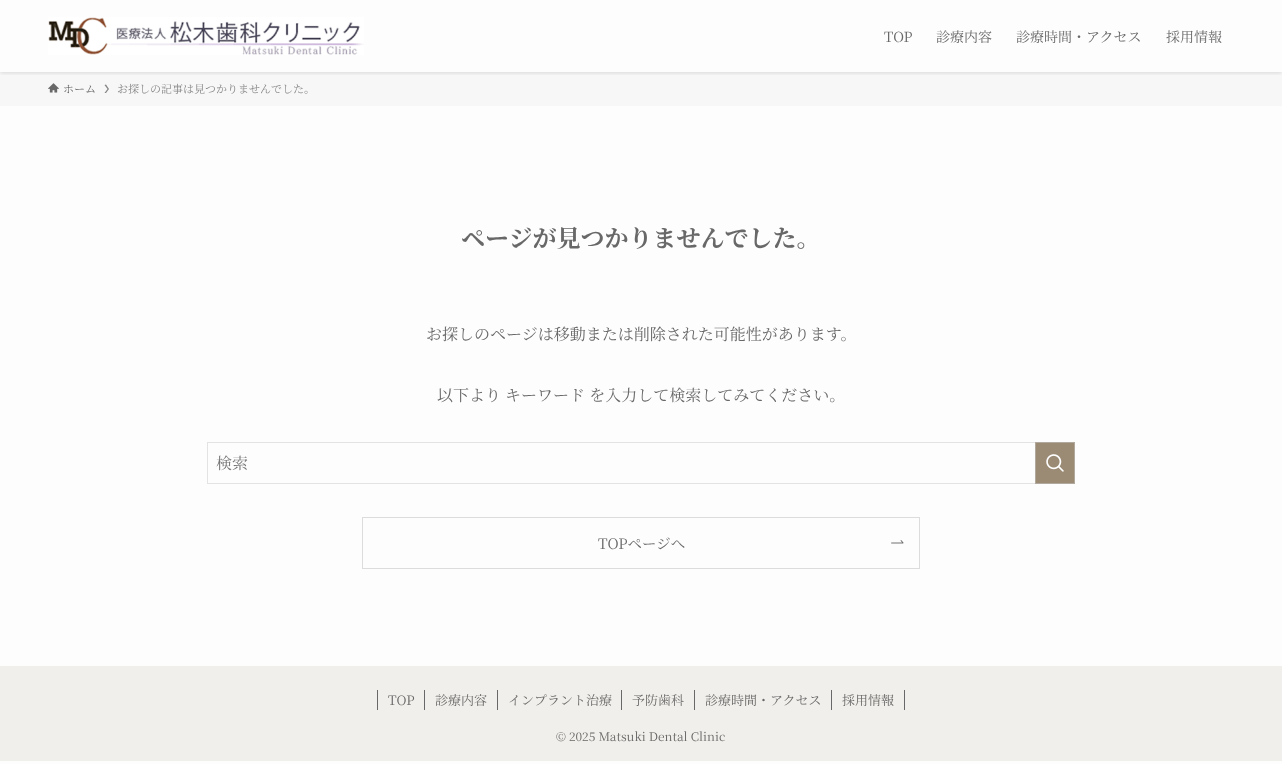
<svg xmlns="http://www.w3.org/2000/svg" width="1282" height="764">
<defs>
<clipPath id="clip1"><rect x="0" y="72" width="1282" height="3"/></clipPath>
</defs>
<rect width="100%" height="100%" fill="#fdfdfd"/>
<rect y="72" width="1282" height="34" fill="#f7f7f7"/>
<g clip-path="url(#clip1)">
<rect y="1" width="1282" height="72" fill="#0000001f" filter="blur(2px)"/>
</g>
<image x="48" y="17" width="316" height="38" href="media/1.png"/>
<text x="884" y="42" style="font-family:Noto Serif JP;font-size:14px;fill:#696868">TOP</text>
<text x="936" y="42" style="font-family:Noto Serif JP;font-size:14px;fill:#696868">診療内容</text>
<text x="1016" y="42" style="font-family:Noto Serif JP;font-size:14px;fill:#696868">診療時間・アクセス</text>
<text x="1166" y="42" style="font-family:Noto Serif JP;font-size:14px;fill:#696868">採用情報</text>
<image x="48" y="83" width="11" height="10" href="media/2.png"/>
<text x="63" y="93" style="font-family:Noto Serif JP;font-size:11px;fill:#696868">ホーム</text>
<path d="M106 84.5l-1.5 .5l3 4l-3 4h1.5l3-4z" fill="#858585"/>
<text x="117" y="93" style="font-family:Noto Serif JP;font-size:11px;fill:#858585">お探しの記事は見つかりませんでした。</text>
<text x="461" y="247" style="font-family:Noto Serif JP;font-size:24px;font-weight:bold;fill:#696868">ページが見つかりませんでした。</text>
<text x="426" y="340" style="font-family:Noto Serif JP;font-size:16px;fill:#696868">お探しのページは移動または削除された可能性があります。</text>
<text x="437" y="401" style="font-family:Noto Serif JP;font-size:16px;fill:#696868">以下より キーワード を入力して検索してみてください。</text>
<rect x="207.5" y="442.5" width="867" height="41" fill="none" stroke="#e3e3e3"/>
<text x="216" y="469" style="font-family:Noto Serif JP;font-size:16px;fill:#757575">検索</text>
<rect x="1035.5" y="442.5" width="39" height="41" fill="#9b8b74" stroke="#b1a99e"/>
<image x="1046" y="454" width="18" height="18" href="media/3.png"/>
<rect x="362.5" y="517.5" width="557" height="51" fill="none" stroke="#dcdcdc"/>
<text x="598" y="549" style="font-family:Noto Serif JP;font-size:14.5px;fill:#696868">TOPページへ</text>
<image x="891" y="540" width="13" height="4" href="media/4.png"/>
<rect y="666" width="1282" height="95" fill="#f1efeb"/>
<rect x="424" y="690" width="1" height="20" fill="#696868"/>
<rect x="377" y="690" width="1" height="20" fill="#696868"/>
<text x="388" y="705" style="font-family:Noto Serif JP;font-size:13px;fill:#696868">TOP</text>
<rect x="497" y="690" width="1" height="20" fill="#696868"/>
<text x="435" y="705" style="font-family:Noto Serif JP;font-size:13px;fill:#696868">診療内容</text>
<rect x="621" y="690" width="1" height="20" fill="#696868"/>
<text x="508" y="705" style="font-family:Noto Serif JP;font-size:13px;fill:#696868">インプラント治療</text>
<rect x="694" y="690" width="1" height="20" fill="#696868"/>
<text x="632" y="705" style="font-family:Noto Serif JP;font-size:13px;fill:#696868">予防歯科</text>
<rect x="831" y="690" width="1" height="20" fill="#696868"/>
<text x="705" y="705" style="font-family:Noto Serif JP;font-size:13px;fill:#696868">診療時間・アクセス</text>
<rect x="904" y="690" width="1" height="20" fill="#696868"/>
<text x="842" y="705" style="font-family:Noto Serif JP;font-size:13px;fill:#696868">採用情報</text>
<text x="556" y="741" style="font-family:Noto Serif JP;font-size:12px;fill:#696868">© 2025 Matsuki Dental Clinic</text>
</svg>
